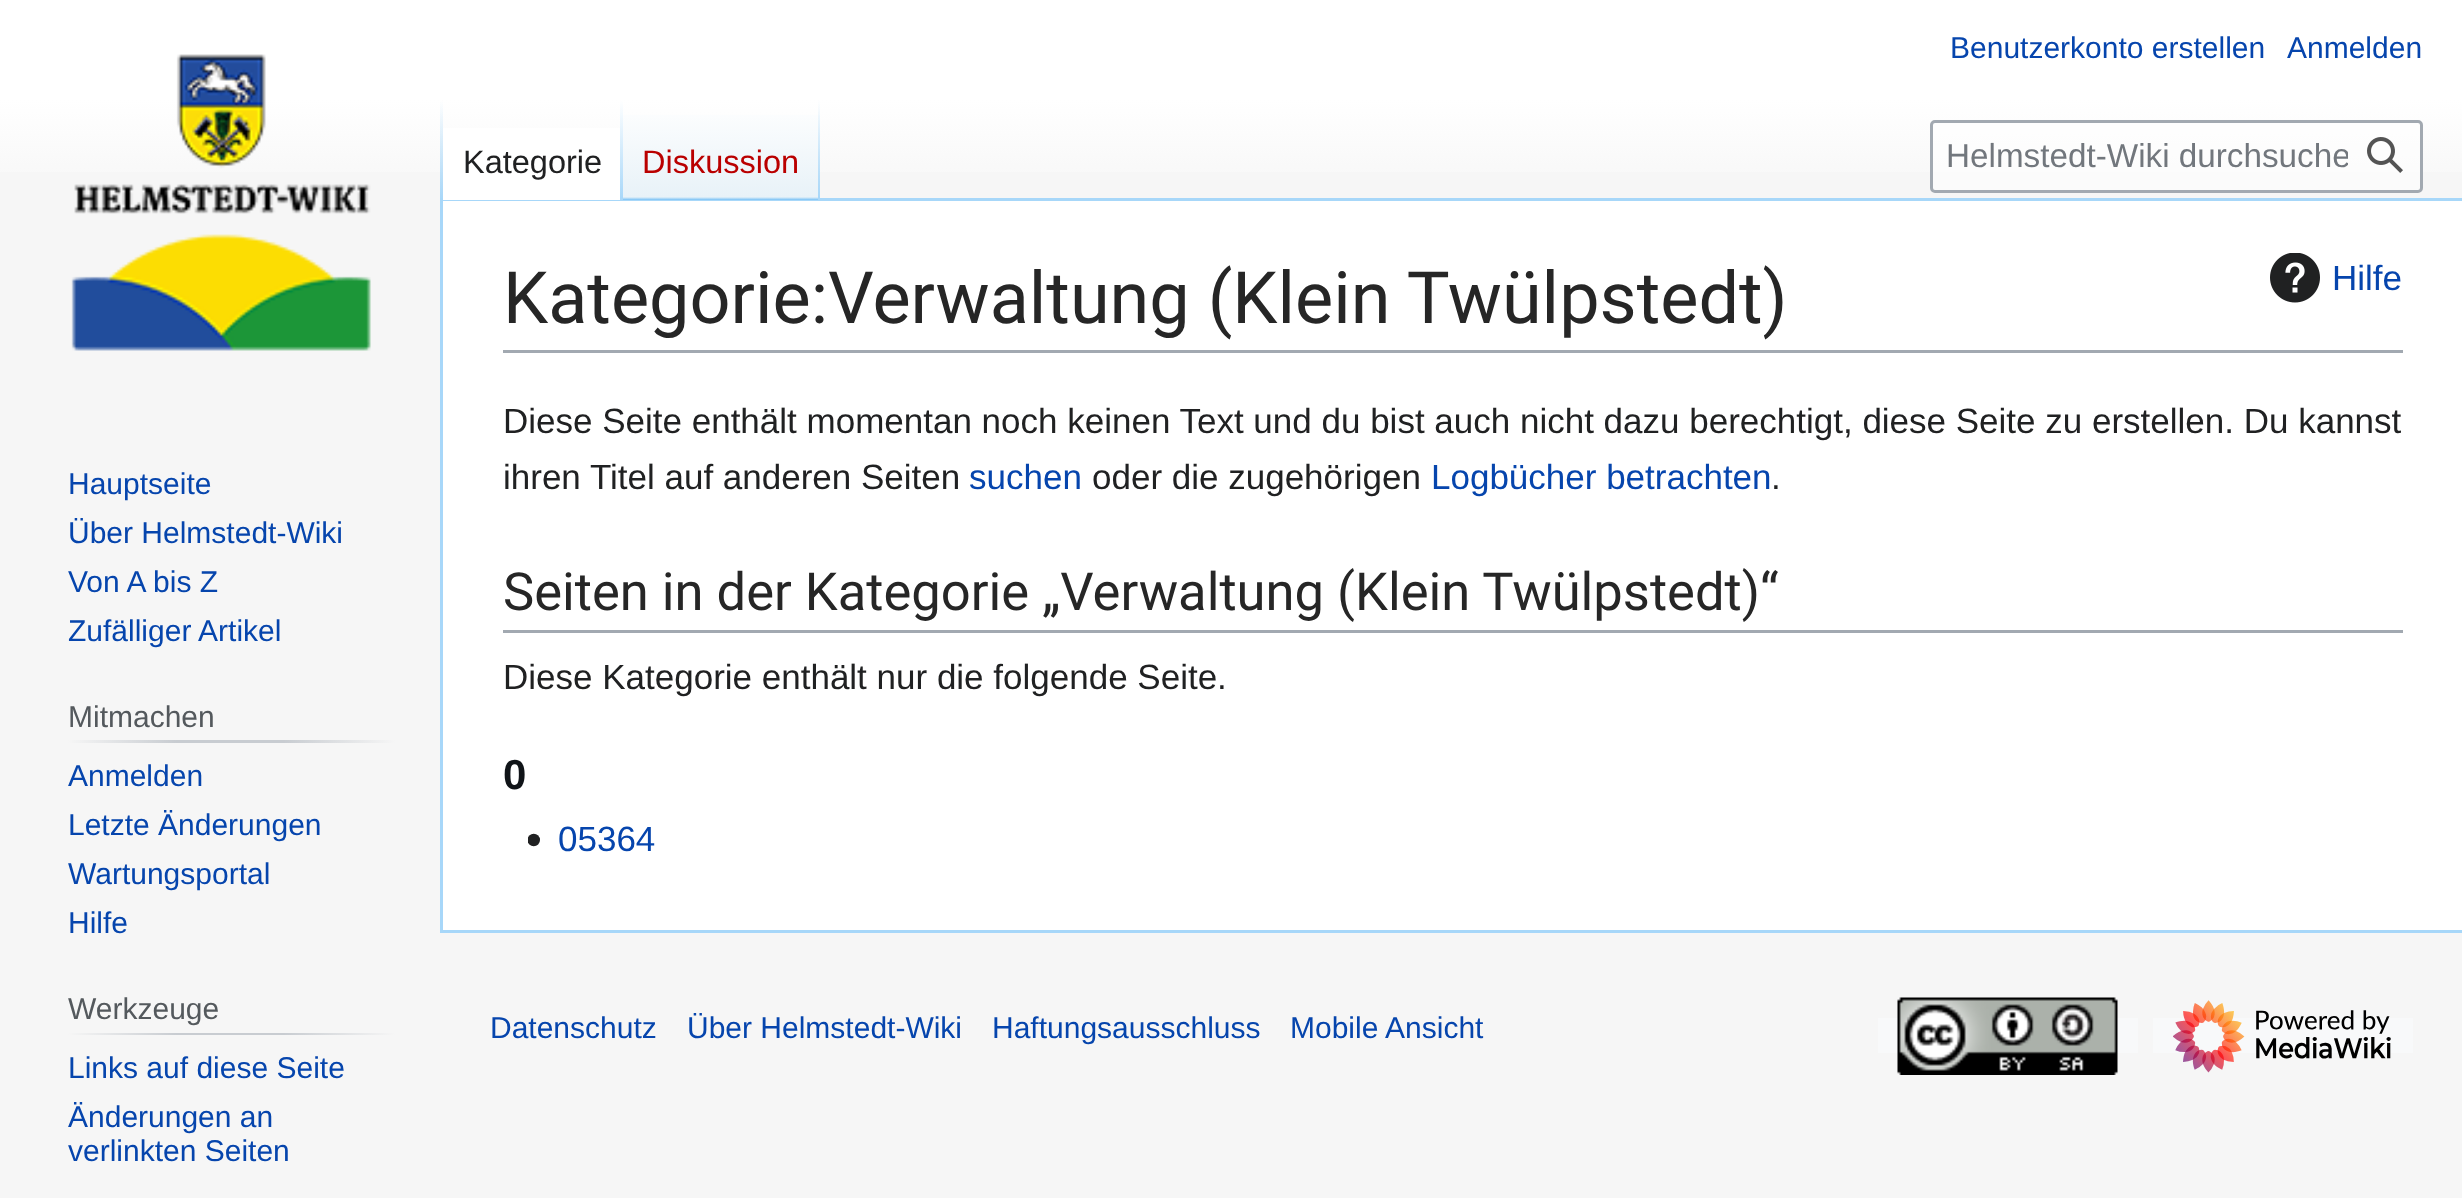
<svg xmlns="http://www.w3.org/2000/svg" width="2462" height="1198">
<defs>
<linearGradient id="g1" gradientUnits="userSpaceOnUse" x1="1231" y1="0" x2="1231" y2="200"><stop offset="0.5" stop-color="#fff"/><stop offset="1" stop-color="#f6f6f6"/></linearGradient>
<linearGradient id="g2" gradientUnits="userSpaceOnUse" x1="441" y1="100" x2="441" y2="200"><stop offset="0" stop-color="#a7d7f9" stop-opacity="0"/><stop offset="1" stop-color="#a7d7f9"/></linearGradient>
<linearGradient id="g3" gradientUnits="userSpaceOnUse" x1="621" y1="100" x2="621" y2="200"><stop offset="0" stop-color="#fff"/><stop offset="1" stop-color="#a7d7f9"/></linearGradient>
<linearGradient id="g4" gradientUnits="userSpaceOnUse" x1="721" y1="200" x2="721" y2="100"><stop offset="0" stop-color="#77c1f6"/><stop offset="0.03" stop-color="#e8f2f8"/><stop offset="1" stop-color="#fff"/></linearGradient>
<linearGradient id="g5" gradientUnits="userSpaceOnUse" x1="819" y1="100" x2="819" y2="200"><stop offset="0" stop-color="#a7d7f9" stop-opacity="0"/><stop offset="1" stop-color="#a7d7f9"/></linearGradient>
<clipPath id="clip1"><rect x="1945" y="138" width="403" height="37"/></clipPath>
<linearGradient id="g6" gradientUnits="userSpaceOnUse" x1="68" y1="741" x2="395" y2="741"><stop offset="0" stop-color="#f6f6f6"/><stop offset="0.33" stop-color="#c8ccd1"/><stop offset="0.66" stop-color="#c8ccd1"/><stop offset="1" stop-color="#f6f6f6"/></linearGradient>
<linearGradient id="g7" gradientUnits="userSpaceOnUse" x1="68" y1="1034" x2="395" y2="1034"><stop offset="0" stop-color="#f6f6f6"/><stop offset="0.33" stop-color="#c8ccd1"/><stop offset="0.66" stop-color="#c8ccd1"/><stop offset="1" stop-color="#f6f6f6"/></linearGradient>
</defs>
<rect width="100%" height="100%" fill="#f6f6f6"/>
<rect width="2462" height="172" fill="url(#g1)"/>
<text x="1950" y="58" style="font-family:Liberation Sans;font-size:30px;fill:#0645ad">Benutzerkonto erstellen</text>
<text x="2287" y="58" style="font-family:Liberation Sans;font-size:30px;fill:#0645ad">Anmelden</text>
<rect x="440" y="198" width="2022" height="3" fill="#a7d7f9"/>
<rect x="440" y="930" width="2022" height="3" fill="#a7d7f9"/>
<rect x="440" y="198" width="3" height="735" fill="#a7d7f9"/>
<rect x="440" y="100" width="3" height="100" fill="url(#g2)"/>
<rect x="443" y="128" width="177" height="72" fill="#fff"/>
<rect x="620" y="100" width="3" height="100" fill="url(#g3)"/>
<text x="463" y="173" style="font-family:Liberation Sans;font-size:32.5px;fill:#202122">Kategorie</text>
<rect x="623" y="115" width="197" height="85" fill="url(#g4)"/>
<rect x="818" y="100" width="2" height="100" fill="url(#g5)"/>
<text x="642" y="173" style="font-family:Liberation Sans;font-size:32.5px;fill:#ba0000">Diskussion</text>
<rect x="1931.5" y="121.5" width="490" height="70" rx="3.5" fill="#ffffff80" stroke="#a2a9b1" stroke-width="3"/>
<g clip-path="url(#clip1)">
<text x="1946" y="167" style="font-family:Liberation Sans;font-size:33.25px;fill:#72777d">Helmstedt-Wiki durchsuche</text>
</g>
<image x="2367" y="137" width="36" height="36" href="media/1.png"/>
<image x="71" y="54" width="300" height="297" href="media/2.png"/>
<text x="68" y="494" style="font-family:Liberation Sans;font-size:30px;fill:#0645ad">Hauptseite</text>
<text x="68" y="543" style="font-family:Liberation Sans;font-size:30px;fill:#0645ad">Über Helmstedt-Wiki</text>
<text x="68" y="592" style="font-family:Liberation Sans;font-size:30px;fill:#0645ad">Von A bis Z</text>
<text x="68" y="641" style="font-family:Liberation Sans;font-size:30px;fill:#0645ad">Zufälliger Artikel</text>
<rect x="68" y="740" width="327" height="3" fill="url(#g6)"/>
<text x="68" y="727" style="font-family:Liberation Sans;font-size:30px;fill:#54595d">Mitmachen</text>
<text x="68" y="786" style="font-family:Liberation Sans;font-size:30px;fill:#0645ad">Anmelden</text>
<text x="68" y="835" style="font-family:Liberation Sans;font-size:30px;fill:#0645ad">Letzte Änderungen</text>
<text x="68" y="884" style="font-family:Liberation Sans;font-size:30px;fill:#0645ad">Wartungsportal</text>
<text x="68" y="933" style="font-family:Liberation Sans;font-size:30px;fill:#0645ad">Hilfe</text>
<rect x="68" y="1033" width="327" height="2" fill="url(#g7)"/>
<text x="68" y="1019" style="font-family:Liberation Sans;font-size:30px;fill:#54595d">Werkzeuge</text>
<text x="68" y="1078" style="font-family:Liberation Sans;font-size:30px;fill:#0645ad">Links auf diese Seite</text>
<text x="68" y="1127" style="font-family:Liberation Sans;font-size:30px;fill:#0645ad">Änderungen an</text>
<text x="68" y="1161" style="font-family:Liberation Sans;font-size:30px;fill:#0645ad">verlinkten Seiten</text>
<rect x="443" y="201" width="2019" height="729" fill="#fff"/>
<rect x="503" y="350" width="1900" height="3" fill="#a2a9b1"/>
<text x="503" y="323" style="font-family:Roboto;font-size:72px;fill:#262626">Kategorie:Verwaltung (Klein Twülpstedt)</text>
<image x="2270" y="253" width="50" height="50" href="media/3.png"/>
<text x="2332" y="290" style="font-family:Liberation Sans;font-size:35px;fill:#0645ad">Hilfe</text>
<text x="503" y="433" style="font-family:Liberation Sans;font-size:35px;fill:#202122">Diese Seite enthält momentan noch keinen Text und du bist auch nicht dazu berechtigt, diese Seite zu erstellen. Du kannst</text>
<text x="503" y="489" style="font-family:Liberation Sans;font-size:35px;fill:#202122">ihren Titel auf anderen Seiten</text>
<text x="969" y="489" style="font-family:Liberation Sans;font-size:35px;fill:#0645ad">suchen</text>
<text x="1092" y="489" style="font-family:Liberation Sans;font-size:35px;fill:#202122">oder die zugehörigen</text>
<text x="1431" y="489" style="font-family:Liberation Sans;font-size:35px;fill:#0645ad">Logbücher betrachten</text>
<text x="1771" y="489" style="font-family:Liberation Sans;font-size:35px;fill:#202122">.</text>
<rect x="503" y="630" width="1900" height="3" fill="#a2a9b1"/>
<text x="503" y="610" style="font-family:Roboto;font-size:52.5px;fill:#262626">Seiten in der Kategorie „Verwaltung (Klein Twülpstedt)“</text>
<text x="503" y="689" style="font-family:Liberation Sans;font-size:35px;fill:#202122">Diese Kategorie enthält nur die folgende Seite.</text>
<text x="503" y="789" style="font-family:Liberation Sans;font-size:42px;font-weight:bold;fill:#101418">0</text>
<image x="528" y="833" width="12" height="14" href="media/4.png"/>
<text x="558" y="851" style="font-family:Liberation Sans;font-size:35px;fill:#0645ad">05364</text>
<text x="490" y="1038" style="font-family:Liberation Sans;font-size:30px;fill:#0645ad">Datenschutz</text>
<text x="687" y="1038" style="font-family:Liberation Sans;font-size:30px;fill:#0645ad">Über Helmstedt-Wiki</text>
<text x="992" y="1038" style="font-family:Liberation Sans;font-size:30px;fill:#0645ad">Haftungsausschluss</text>
<text x="1290" y="1038" style="font-family:Liberation Sans;font-size:30px;fill:#0645ad">Mobile Ansicht</text>
<rect x="1878" y="1018" width="260" height="35" fill="#f8f9fa"/>
<image x="1897" y="997" width="221" height="78" href="media/5.png"/>
<rect x="2153" y="1018" width="260" height="35" fill="#f8f9fa"/>
<image x="2173" y="1000" width="218" height="73" href="media/6.png"/>
</svg>
